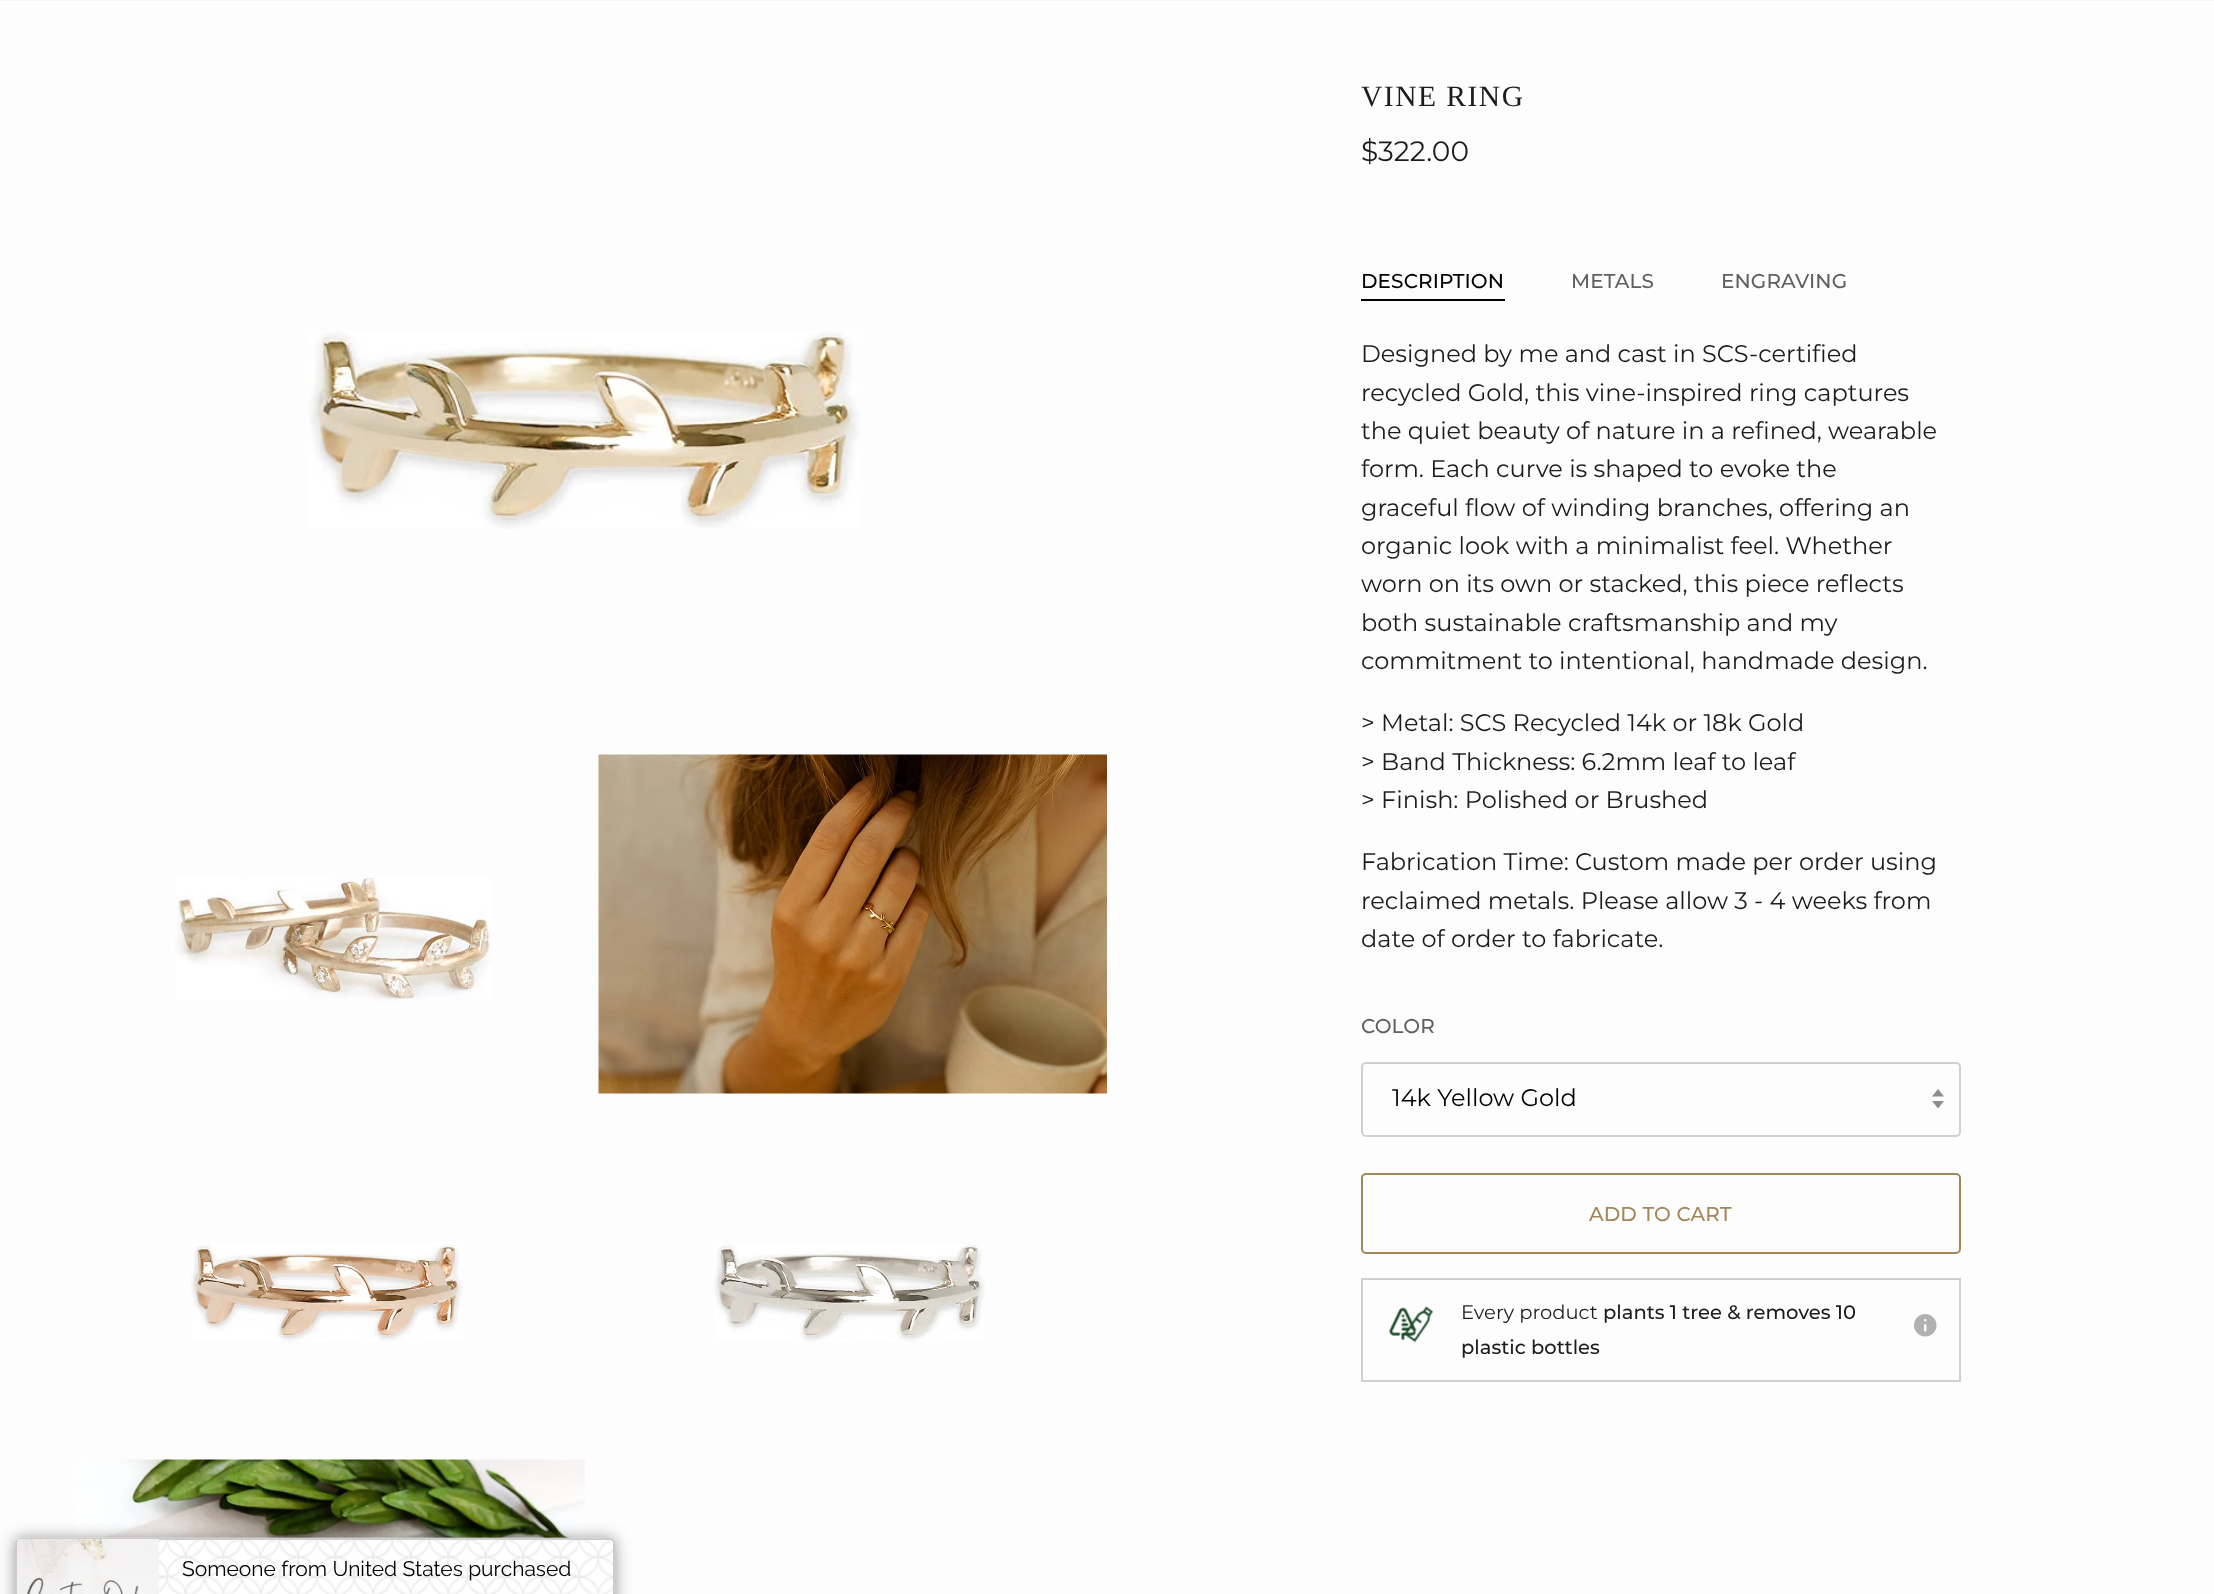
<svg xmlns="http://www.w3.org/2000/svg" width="2214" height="1594">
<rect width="100%" height="100%" fill="#fefdfd"/>
<rect width="2214" height="1" fill="#f7f5f4"/>
<image x="309" y="331" width="550" height="198" href="media/1.png"/>
<image x="175" y="878" width="317" height="123" href="media/2.png"/>
<image x="598" y="754" width="509" height="340" href="media/3.png"/>
<image x="191" y="1243" width="272" height="99" href="media/4.png"/>
<image x="714" y="1244" width="271" height="98" href="media/5.png"/>
<image x="75" y="1459" width="510" height="79" href="media/6.png"/>
<text x="1361" y="106" style="font-family:Liberation Serif;font-size:29.5px;letter-spacing:1.5px;fill:#1e1b1b">VINE RING</text>
<text x="1361" y="161" style="font-family:Montserrat;font-size:28px;letter-spacing:0.1px;fill:#1e1b1b">$322.00</text>
<rect x="1361" y="299" width="144" height="2" fill="#000"/>
<text x="1361" y="288" style="font-family:Montserrat;font-size:20px;font-weight:500;letter-spacing:0.1px;fill:#000">DESCRIPTION</text>
<text x="1571" y="288" style="font-family:Montserrat;font-size:20px;font-weight:500;letter-spacing:0.1px;fill:#615f5f">METALS</text>
<text x="1721" y="288" style="font-family:Montserrat;font-size:20px;font-weight:500;letter-spacing:0.1px;fill:#615f5f">ENGRAVING</text>
<text x="1361" y="362" style="font-family:Montserrat;font-size:24px;fill:#1e1b1b">Designed by me and cast in SCS-certified</text>
<text x="1361" y="401" style="font-family:Montserrat;font-size:24px;fill:#1e1b1b">recycled Gold, this vine-inspired ring captures</text>
<text x="1361" y="439" style="font-family:Montserrat;font-size:24px;fill:#1e1b1b">the quiet beauty of nature in a refined, wearable</text>
<text x="1361" y="477" style="font-family:Montserrat;font-size:24px;fill:#1e1b1b">form. Each curve is shaped to evoke the</text>
<text x="1361" y="516" style="font-family:Montserrat;font-size:24px;fill:#1e1b1b">graceful flow of winding branches, offering an</text>
<text x="1361" y="554" style="font-family:Montserrat;font-size:24px;fill:#1e1b1b">organic look with a minimalist feel. Whether</text>
<text x="1361" y="592" style="font-family:Montserrat;font-size:24px;fill:#1e1b1b">worn on its own or stacked, this piece reflects</text>
<text x="1361" y="631" style="font-family:Montserrat;font-size:24px;fill:#1e1b1b">both sustainable craftsmanship and my</text>
<text x="1361" y="669" style="font-family:Montserrat;font-size:24px;fill:#1e1b1b">commitment to intentional, handmade design.</text>
<text x="1361" y="731" style="font-family:Montserrat;font-size:24px;fill:#1e1b1b">&gt; Metal: SCS Recycled 14k or 18k Gold</text>
<text x="1361" y="770" style="font-family:Montserrat;font-size:24px;fill:#1e1b1b">&gt; Band Thickness: 6.2mm leaf to leaf</text>
<text x="1361" y="808" style="font-family:Montserrat;font-size:24px;fill:#1e1b1b">&gt; Finish: Polished or Brushed</text>
<text x="1361" y="870" style="font-family:Montserrat;font-size:24px;fill:#1e1b1b">Fabrication Time: Custom made per order using</text>
<text x="1361" y="909" style="font-family:Montserrat;font-size:24px;fill:#1e1b1b">reclaimed metals. Please allow 3 - 4 weeks from</text>
<text x="1361" y="947" style="font-family:Montserrat;font-size:24px;fill:#1e1b1b">date of order to fabricate.</text>
<text x="1361" y="1033" style="font-family:Montserrat;font-size:20px;font-weight:500;letter-spacing:0.1px;fill:#615f5f">COLOR</text>
<rect x="1362" y="1063" width="598" height="73" rx="4" fill="none" stroke="#d1d0d0" stroke-width="2"/>
<text x="1392" y="1106" style="font-family:Montserrat;font-size:24px;fill:#000">14k Yellow Gold</text>
<image x="1932" y="1089" width="12" height="20" href="media/7.png"/>
<rect x="1362" y="1174" width="598" height="79" rx="4" fill="none" stroke="#a28758" stroke-width="2"/>
<text x="1589" y="1221" style="font-family:Montserrat;font-size:20px;font-weight:500;letter-spacing:0.1px;fill:#a28758">ADD TO CART</text>
<rect x="1362" y="1279" width="598" height="102" fill="none" stroke="#d1d0d0" stroke-width="2"/>
<image x="1389" y="1306" width="45" height="37" href="media/8.png"/>
<text x="1461" y="1319" style="font-family:Montserrat;font-size:19.5px;fill:#1e1b1b">Every product</text>
<text x="1603" y="1319" style="font-family:Montserrat;font-size:19.5px;font-weight:500;fill:#1e1b1b">plants 1 tree &amp; removes 10</text>
<text x="1461" y="1354" style="font-family:Montserrat;font-size:19.5px;font-weight:500;fill:#1e1b1b">plastic bottles</text>
<image x="1914" y="1314" width="23" height="23" href="media/9.png"/>
<rect x="15" y="1538" width="600" height="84" rx="5" fill="#00000066" filter="blur(7.5px)"/>
<image x="15" y="1537" width="600" height="57" href="media/10.png"/>
<rect x="16" y="1539" width="598" height="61" rx="4" fill="none" stroke="#ccc" stroke-width="2"/>
<image x="17" y="1539" width="142" height="55" href="media/11.png"/>
<text x="182" y="1576" style="font-family:Raleway;font-size:21px;fill:#000">Someone from United States purchased</text>
</svg>
